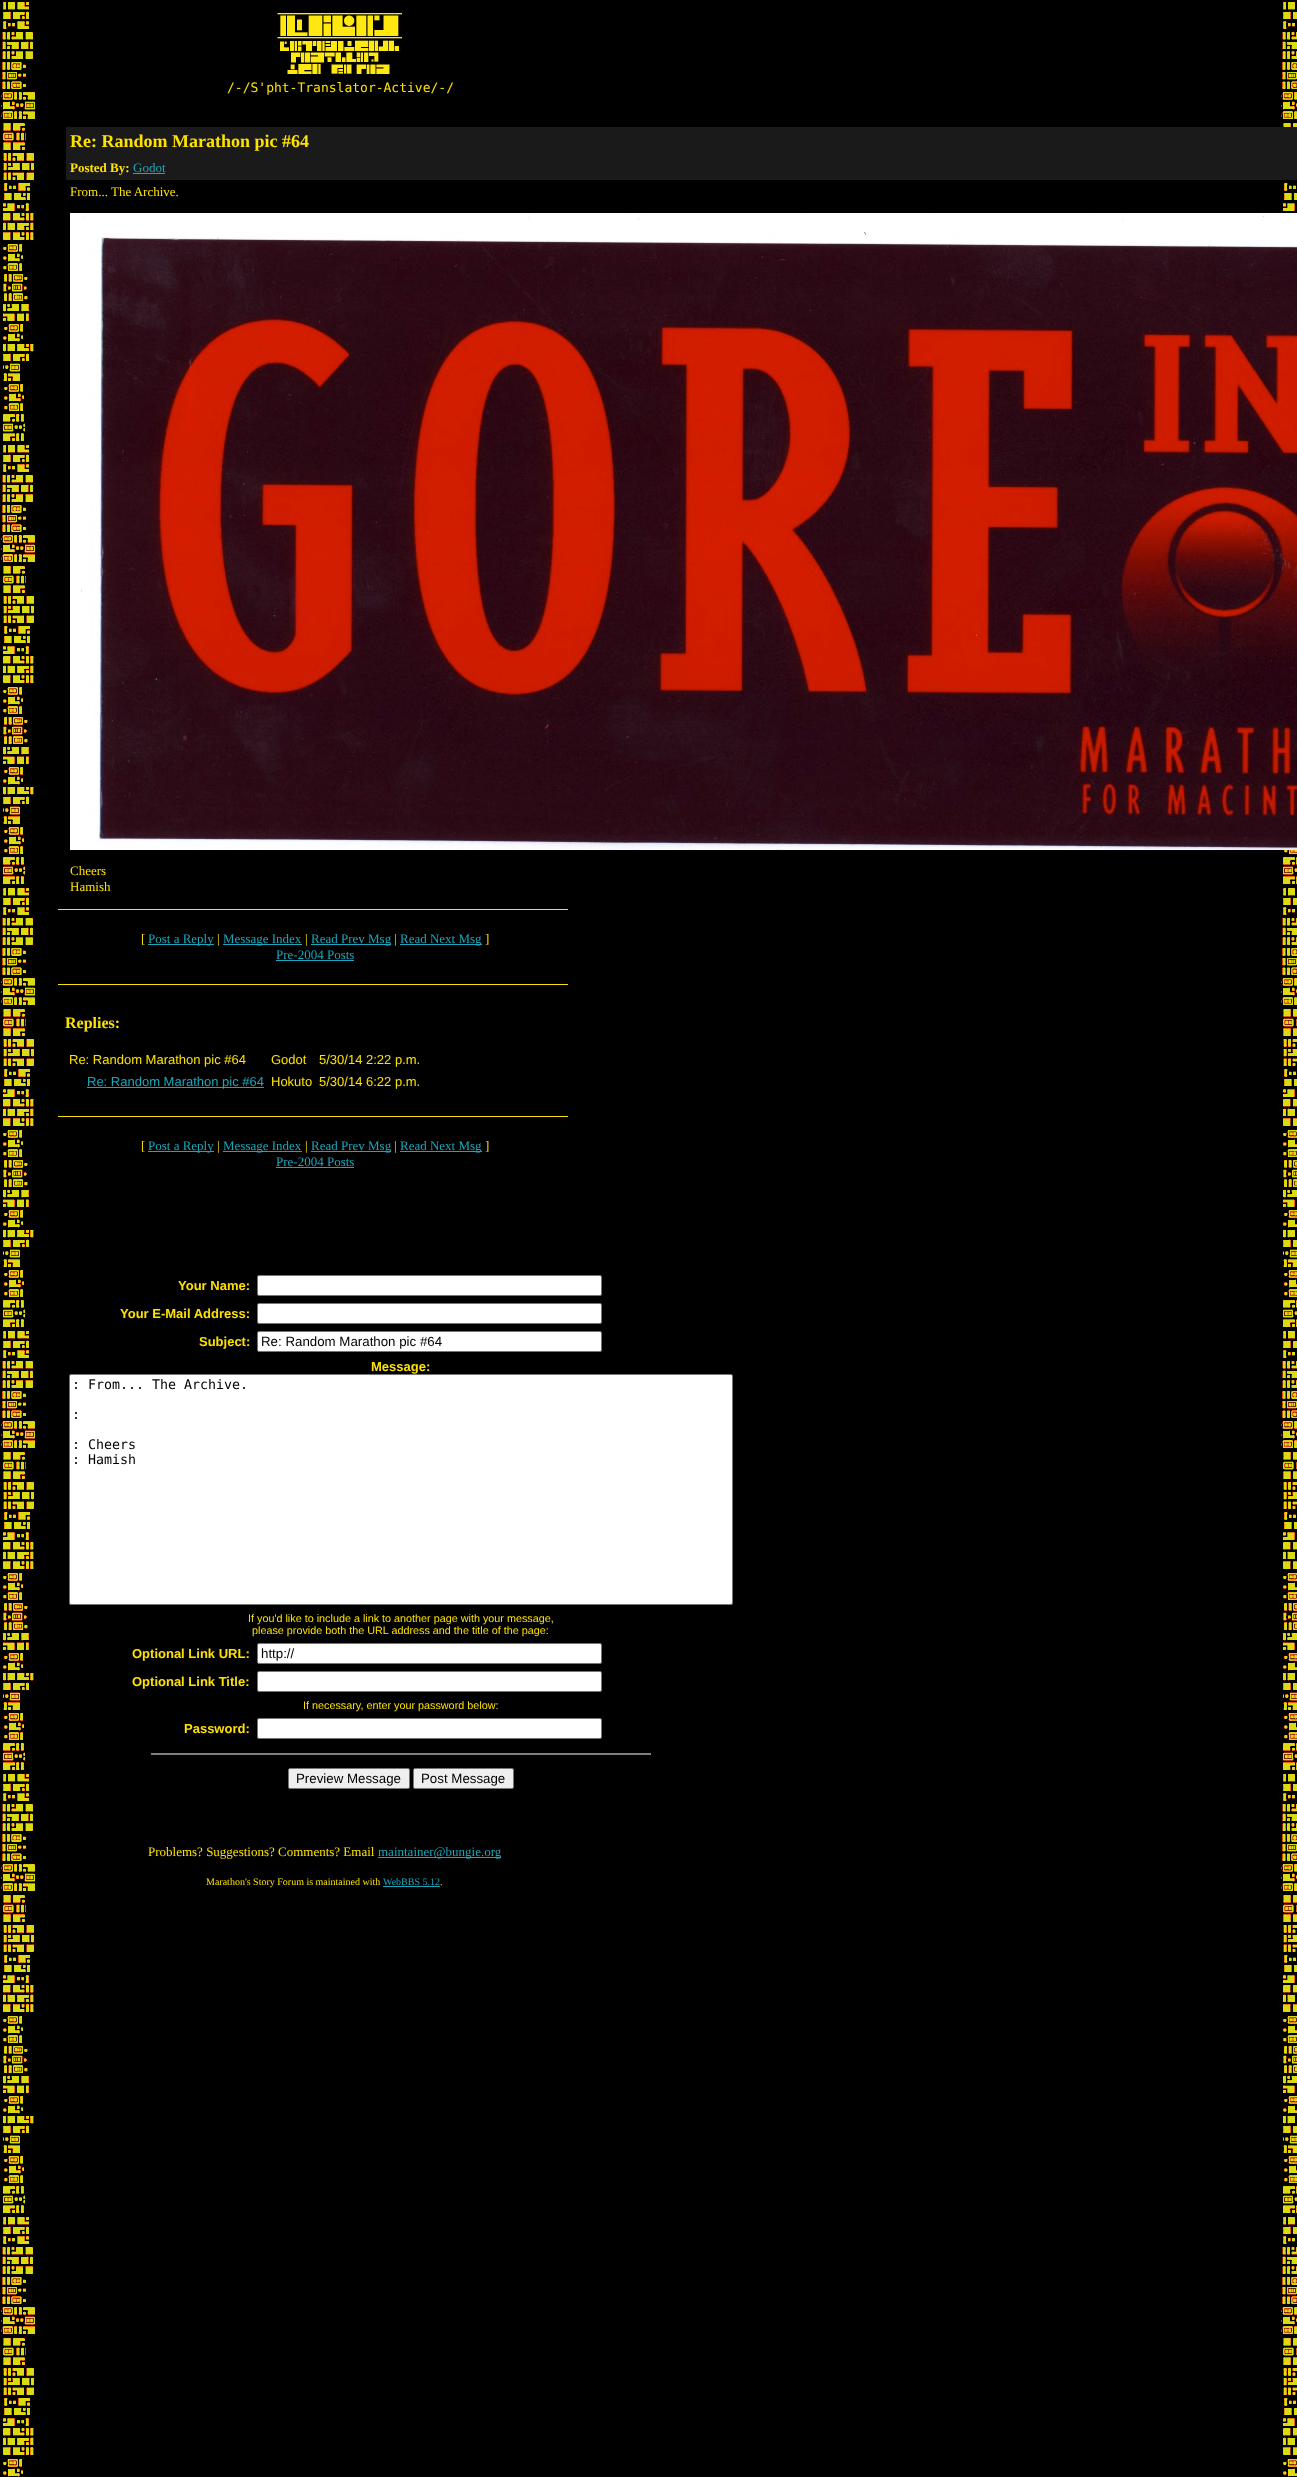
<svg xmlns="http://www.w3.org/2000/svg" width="1297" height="2477">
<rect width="100%" height="100%" fill="#000"/>
<image x="1" y="2" width="1296" height="2475" href="media/1.png"/>
<image x="277" y="13" width="125" height="61" href="media/2.png"/>
<text x="227" y="92" style="font-family:DejaVu Sans Mono;font-size:13px;fill:#fde100">/-/S'pht-Translator-Active/-/</text>
<rect x="66" y="127" width="1231" height="29" fill="#1a1a1a"/>
<text x="70" y="147" style="font-family:Liberation Serif;font-size:18px;font-weight:bold;fill:#fde100">Re: Random Marathon pic #64</text>
<rect x="66" y="156" width="1231" height="24" fill="#1a1a1a"/>
<text x="70" y="172" style="font-family:Liberation Serif;font-size:13px;font-weight:bold;fill:#fde100">Posted By:</text>
<text x="133" y="172" style="font-family:Liberation Serif;font-size:13px;fill:#1aa7bc">Godot</text>
<rect x="133" y="173" width="32" height="1" fill="#1aa7bc"/>
<text x="70" y="196" style="font-family:Liberation Serif;font-size:13px;fill:#fde100">From... The Archive.</text>
<image x="70" y="213" width="1227" height="637" href="media/3.png"/>
<text x="70" y="875" style="font-family:Liberation Serif;font-size:13px;fill:#fde100">Cheers</text>
<text x="70" y="891" style="font-family:Liberation Serif;font-size:13px;fill:#fde100">Hamish</text>
<rect x="58" y="909" width="510" height="1" fill="#fde100"/>
<text x="141" y="943" style="font-family:Liberation Serif;font-size:13px;fill:#fde100">[</text>
<rect x="148" y="944" width="66" height="1" fill="#1aa7bc"/>
<text x="148" y="943" style="font-family:Liberation Serif;font-size:13px;fill:#1aa7bc">Post a Reply</text>
<text x="217" y="943" style="font-family:Liberation Serif;font-size:13px;fill:#fde100">|</text>
<rect x="223" y="944" width="79" height="1" fill="#1aa7bc"/>
<text x="223" y="943" style="font-family:Liberation Serif;font-size:13px;fill:#1aa7bc">Message Index</text>
<text x="305" y="943" style="font-family:Liberation Serif;font-size:13px;fill:#fde100">|</text>
<rect x="311" y="944" width="80" height="1" fill="#1aa7bc"/>
<text x="311" y="943" style="font-family:Liberation Serif;font-size:13px;fill:#1aa7bc">Read Prev Msg</text>
<text x="394" y="943" style="font-family:Liberation Serif;font-size:13px;fill:#fde100">|</text>
<rect x="400" y="944" width="82" height="1" fill="#1aa7bc"/>
<text x="400" y="943" style="font-family:Liberation Serif;font-size:13px;fill:#1aa7bc">Read Next Msg</text>
<text x="485" y="943" style="font-family:Liberation Serif;font-size:13px;fill:#fde100">]</text>
<text x="276" y="959" style="font-family:Liberation Serif;font-size:13px;fill:#1aa7bc">Pre-2004 Posts</text>
<rect x="276" y="960" width="78" height="1" fill="#1aa7bc"/>
<rect x="58" y="984" width="510" height="1" fill="#fde100"/>
<text x="65" y="1028" style="font-family:Liberation Serif;font-size:16px;font-weight:bold;fill:#fde100">Replies:</text>
<text x="69" y="1064" style="font-family:Liberation Sans;font-size:13px;fill:#fde100">Re: Random Marathon pic #64</text>
<text x="271" y="1064" style="font-family:Liberation Sans;font-size:13px;fill:#fde100">Godot</text>
<text x="319" y="1064" style="font-family:Liberation Sans;font-size:13px;fill:#fde100">5/30/14 2:22 p.m.</text>
<rect x="87" y="1087" width="177" height="1" fill="#1aa7bc"/>
<text x="87" y="1086" style="font-family:Liberation Sans;font-size:13px;fill:#1aa7bc">Re: Random Marathon pic #64</text>
<text x="271" y="1086" style="font-family:Liberation Sans;font-size:13px;fill:#fde100">Hokuto</text>
<text x="319" y="1086" style="font-family:Liberation Sans;font-size:13px;fill:#fde100">5/30/14 6:22 p.m.</text>
<rect x="58" y="1116" width="510" height="1" fill="#fde100"/>
<text x="141" y="1150" style="font-family:Liberation Serif;font-size:13px;fill:#fde100">[</text>
<rect x="148" y="1151" width="66" height="1" fill="#1aa7bc"/>
<text x="148" y="1150" style="font-family:Liberation Serif;font-size:13px;fill:#1aa7bc">Post a Reply</text>
<text x="217" y="1150" style="font-family:Liberation Serif;font-size:13px;fill:#fde100">|</text>
<rect x="223" y="1151" width="79" height="1" fill="#1aa7bc"/>
<text x="223" y="1150" style="font-family:Liberation Serif;font-size:13px;fill:#1aa7bc">Message Index</text>
<text x="305" y="1150" style="font-family:Liberation Serif;font-size:13px;fill:#fde100">|</text>
<rect x="311" y="1151" width="80" height="1" fill="#1aa7bc"/>
<text x="311" y="1150" style="font-family:Liberation Serif;font-size:13px;fill:#1aa7bc">Read Prev Msg</text>
<text x="394" y="1150" style="font-family:Liberation Serif;font-size:13px;fill:#fde100">|</text>
<rect x="400" y="1151" width="82" height="1" fill="#1aa7bc"/>
<text x="400" y="1150" style="font-family:Liberation Serif;font-size:13px;fill:#1aa7bc">Read Next Msg</text>
<text x="485" y="1150" style="font-family:Liberation Serif;font-size:13px;fill:#fde100">]</text>
<text x="276" y="1166" style="font-family:Liberation Serif;font-size:13px;fill:#1aa7bc">Pre-2004 Posts</text>
<rect x="276" y="1167" width="78" height="1" fill="#1aa7bc"/>
<text x="178" y="1290" style="font-family:Liberation Sans;font-size:13px;font-weight:bold;fill:#fde100">Your Name:</text>
<rect x="257.5" y="1275.5" width="344" height="20" rx="1.5" fill="#fff" stroke="#767676"/>
<text x="120" y="1318" style="font-family:Liberation Sans;font-size:13px;font-weight:bold;fill:#fde100">Your E-Mail Address:</text>
<rect x="257.5" y="1303.5" width="344" height="20" rx="1.5" fill="#fff" stroke="#767676"/>
<text x="199" y="1346" style="font-family:Liberation Sans;font-size:13px;font-weight:bold;fill:#fde100">Subject:</text>
<rect x="257.5" y="1331.5" width="344" height="20" rx="1.5" fill="#fff" stroke="#767676"/>
<text x="261" y="1346" style="font-family:Liberation Sans;font-size:13.3px;fill:#000">Re: Random Marathon pic #64</text>
<text x="371" y="1371" style="font-family:Liberation Sans;font-size:13px;font-weight:bold;fill:#fde100">Message:</text>
<rect x="69.5" y="1374.5" width="663" height="230" rx="1.5" fill="#fff" stroke="#767676"/>
<text x="72" y="1389" style="font-family:DejaVu Sans Mono;font-size:13.3px;fill:#000">: From... The Archive.</text>
<text x="72" y="1419" style="font-family:DejaVu Sans Mono;font-size:13.3px;fill:#000">:</text>
<text x="72" y="1449" style="font-family:DejaVu Sans Mono;font-size:13.3px;fill:#000">: Cheers</text>
<text x="72" y="1464" style="font-family:DejaVu Sans Mono;font-size:13.3px;fill:#000">: Hamish</text>
<text x="248" y="1622" style="font-family:Liberation Sans;font-size:10.8px;fill:#fde100">If you'd like to include a link to another page with your message,</text>
<text x="252" y="1634" style="font-family:Liberation Sans;font-size:10.8px;fill:#fde100">please provide both the URL address and the title of the page:</text>
<text x="132" y="1658" style="font-family:Liberation Sans;font-size:13px;font-weight:bold;fill:#fde100">Optional Link URL:</text>
<rect x="257.5" y="1643.5" width="344" height="20" rx="1.5" fill="#fff" stroke="#767676"/>
<text x="261" y="1658" style="font-family:Liberation Sans;font-size:13.3px;fill:#000">http://</text>
<text x="132" y="1686" style="font-family:Liberation Sans;font-size:13px;font-weight:bold;fill:#fde100">Optional Link Title:</text>
<rect x="257.5" y="1671.5" width="344" height="20" rx="1.5" fill="#fff" stroke="#767676"/>
<text x="303" y="1709" style="font-family:Liberation Sans;font-size:10.8px;fill:#fde100">If necessary, enter your password below:</text>
<text x="184" y="1733" style="font-family:Liberation Sans;font-size:13px;font-weight:bold;fill:#fde100">Password:</text>
<rect x="257.5" y="1718.5" width="344" height="20" rx="1.5" fill="#fff" stroke="#767676"/>
<rect x="151" y="1753" width="500" height="2" fill="#808080"/>
<rect x="288.5" y="1768.5" width="121" height="20" rx="1.5" fill="#efefef" stroke="#767676"/>
<text x="296" y="1783" style="font-family:Liberation Sans;font-size:13.3px;fill:#000">Preview Message</text>
<rect x="413.5" y="1768.5" width="100" height="20" rx="1.5" fill="#efefef" stroke="#767676"/>
<text x="421" y="1783" style="font-family:Liberation Sans;font-size:13.3px;fill:#000">Post Message</text>
<text x="148" y="1856" style="font-family:Liberation Serif;font-size:13px;fill:#fde100">Problems? Suggestions? Comments? Email</text>
<rect x="378" y="1857" width="123" height="1" fill="#1aa7bc"/>
<text x="378" y="1856" style="font-family:Liberation Serif;font-size:13px;fill:#1aa7bc">maintainer@bungie.org</text>
<text x="206" y="1885" style="font-family:Liberation Serif;font-size:10px;fill:#fde100">Marathon's Story Forum is maintained with</text>
<text x="383" y="1885" style="font-family:Liberation Serif;font-size:10px;fill:#1aa7bc">WebBBS 5.12</text>
<text x="440" y="1885" style="font-family:Liberation Serif;font-size:10px;fill:#fde100">.</text>
<rect x="383" y="1886" width="57" height="1" fill="#1aa7bc"/>
</svg>
